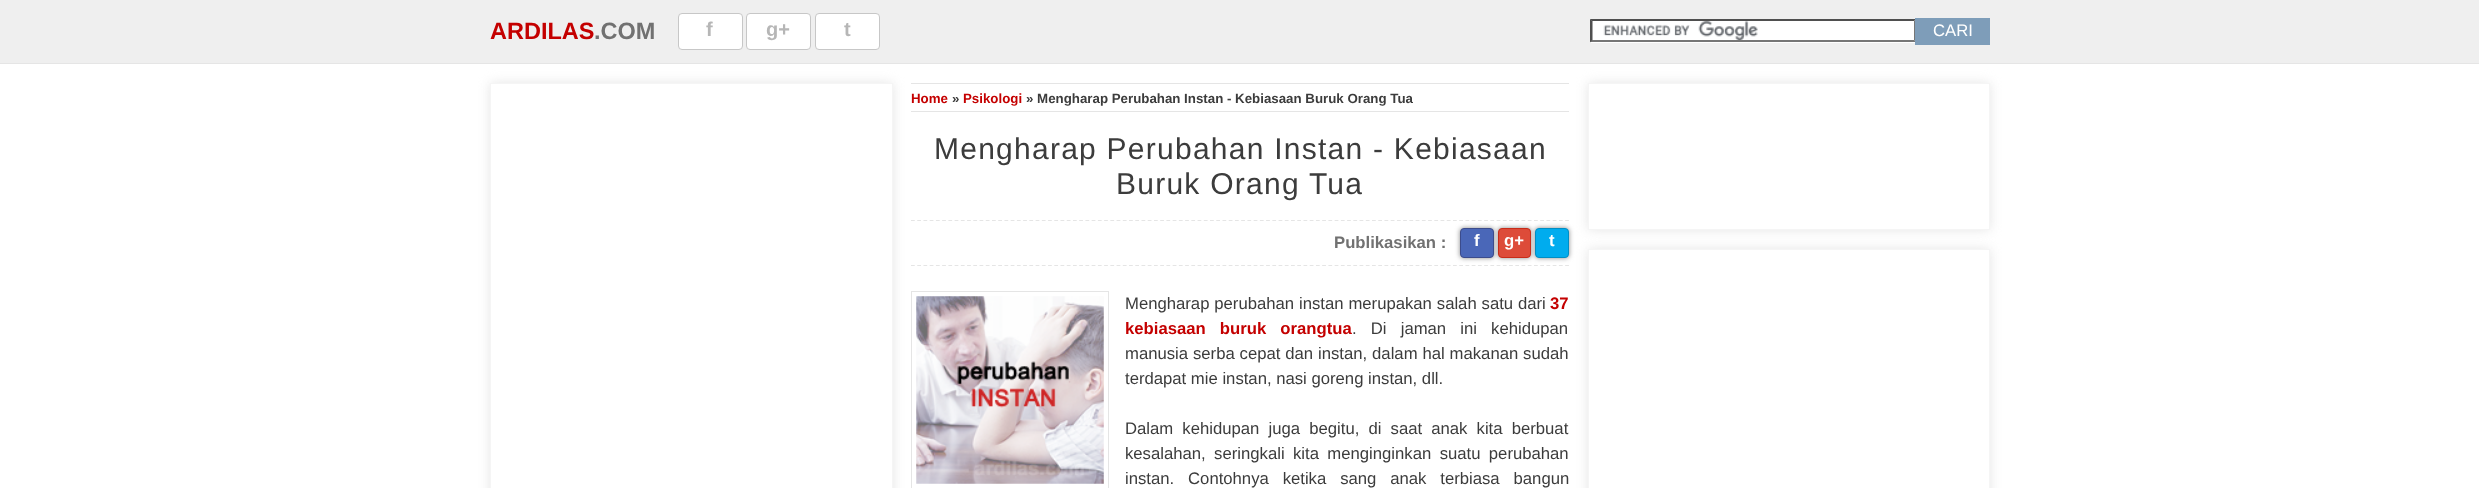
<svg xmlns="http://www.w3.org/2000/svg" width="2479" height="488">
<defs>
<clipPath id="clip1"><path d="M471 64h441v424h-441zm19 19h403v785h-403z" clip-rule="evenodd"/></clipPath>
<clipPath id="clip2"><path d="M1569 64h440v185h-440zm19 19h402v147h-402z" clip-rule="evenodd"/></clipPath>
<clipPath id="clip3"><path d="M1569 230h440v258h-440zm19 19h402v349h-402z" clip-rule="evenodd"/></clipPath>
</defs>
<rect width="100%" height="100%" fill="#fff"/>
<rect width="2479" height="63" fill="#efefef"/>
<rect y="63" width="2479" height="1" fill="#e5e5e5"/>
<text x="490" y="39" style="font-family:Liberation Sans;font-size:23.5px;font-weight:bold;fill:#c40000">ARDILAS</text>
<text x="594" y="39" style="font-family:Liberation Sans;font-size:23.5px;font-weight:bold;fill:#717171">.COM</text>
<rect x="678.5" y="13.5" width="64" height="36" rx="3.5" fill="#fff" stroke="#c7c7c7"/>
<text x="706" y="36" style="font-family:Liberation Sans;font-size:20px;font-weight:bold;fill:#b6b6b6">f</text>
<rect x="746.5" y="13.5" width="64" height="36" rx="3.5" fill="#fff" stroke="#c7c7c7"/>
<text x="766" y="36" style="font-family:Liberation Sans;font-size:20px;font-weight:bold;fill:#b6b6b6">g+</text>
<rect x="815.5" y="13.5" width="64" height="36" rx="3.5" fill="#fff" stroke="#c7c7c7"/>
<text x="844" y="36" style="font-family:Liberation Sans;font-size:20px;font-weight:bold;fill:#b6b6b6">t</text>
<rect x="1590" y="19" width="325" height="24" fill="#fff"/>
<image x="1603" y="21" width="155" height="19" href="media/1.png"/>
<path d="M1590 19h326l-2 2h-322z" fill="#4f4f4f"/>
<path d="M1916 19v23.5l-2-2.5v-19z" fill="#767676"/>
<path d="M1916 42h-326l2-2h322z" fill="#767676"/>
<path d="M1590 42.5v-23.5l2.5 2v19z" fill="#4f4f4f"/>
<rect x="1915" y="18" width="75" height="27" fill="#7e9db9"/>
<text x="1933" y="36" style="font-family:Liberation Sans;font-size:16.7px;fill:#fff">CARI</text>
<g clip-path="url(#clip1)">
<rect x="490" y="83" width="403" height="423" fill="#e5e5e5" filter="blur(6px)"/>
</g>
<rect x="490.5" y="83.5" width="402" height="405" fill="none" stroke="#f5f5f5"/>
<rect x="911" y="83" width="658" height="1" fill="#e5e5e5"/>
<text x="911" y="103" style="font-family:Liberation Sans;font-size:13.3px;font-weight:bold;fill:#c40000">Home</text>
<text x="952" y="103" style="font-family:Liberation Sans;font-size:13.3px;font-weight:bold;fill:#3c3c3c">»</text>
<text x="963" y="103" style="font-family:Liberation Sans;font-size:13.3px;font-weight:bold;fill:#c40000">Psikologi</text>
<text x="1026" y="103" style="font-family:Liberation Sans;font-size:13.3px;font-weight:bold;fill:#3c3c3c">» Mengharap Perubahan Instan - Kebiasaan Buruk Orang Tua</text>
<rect x="911" y="111" width="658" height="1" fill="#e5e5e5"/>
<path d="M911 265.5h658" fill="none" stroke="#e5e5e5" stroke-width="1.2" stroke-dasharray="3.75 2.48"/>
<rect x="1460" y="228" width="34" height="30" rx="4" fill="#888" filter="blur(2.5px)"/>
<rect x="1460.5" y="228.5" width="33" height="29" rx="3.5" fill="#4a67b8" stroke="#3c4c8c"/>
<rect x="1498" y="228" width="33" height="30" rx="4" fill="#888" filter="blur(2.5px)"/>
<rect x="1498.5" y="228.5" width="32" height="29" rx="3.5" fill="#dd4b39" stroke="#c82c19"/>
<rect x="1535" y="228" width="34" height="30" rx="4" fill="#888" filter="blur(2.5px)"/>
<path d="M911 220.5h658" fill="none" stroke="#e5e5e5" stroke-width="1.2" stroke-dasharray="3.75 2.48"/>
<text x="934" y="159" style="font-family:Liberation Sans;font-size:30px;letter-spacing:1.25px;fill:#3c3c3c">Mengharap Perubahan Instan - Kebiasaan</text>
<text x="1116" y="194" style="font-family:Liberation Sans;font-size:30px;letter-spacing:1.25px;fill:#3c3c3c">Buruk Orang Tua</text>
<text x="1334" y="248" style="font-family:Liberation Sans;font-size:16.7px;font-weight:bold;fill:#717171">Publikasikan :</text>
<text x="1474" y="246" style="font-family:Liberation Sans;font-size:16.7px;font-weight:bold;fill:#fff">f</text>
<text x="1504" y="246" style="font-family:Liberation Sans;font-size:16.7px;font-weight:bold;fill:#fff">g+</text>
<rect x="1535.5" y="228.5" width="33" height="29" rx="3.5" fill="#00acee" stroke="#008ec4"/>
<text x="1549" y="246" style="font-family:Liberation Sans;font-size:16.7px;font-weight:bold;fill:#fff">t</text>
<rect x="911.5" y="291.5" width="197" height="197" fill="none" stroke="#e5e5e5"/>
<image x="916" y="296" width="188" height="188" href="media/2.png"/>
<text x="1125" y="309" word-spacing="0.25" style="font-family:Liberation Sans;font-size:16.7px;fill:#3c3c3c">Mengharap perubahan instan merupakan salah satu dari</text>
<text x="1550" y="309" style="font-family:Liberation Sans;font-size:16.7px;font-weight:bold;fill:#c40000">37</text>
<text x="1125" y="334" word-spacing="9.5" style="font-family:Liberation Sans;font-size:16.7px;font-weight:bold;fill:#c40000">kebiasaan buruk orangtua</text>
<text x="1352" y="334" word-spacing="9.5" style="font-family:Liberation Sans;font-size:16.7px;fill:#3c3c3c">. Di jaman ini kehidupan</text>
<text x="1125" y="359" word-spacing="0.25" style="font-family:Liberation Sans;font-size:16.7px;fill:#3c3c3c">manusia serba cepat dan instan, dalam hal makanan sudah</text>
<text x="1125" y="384" style="font-family:Liberation Sans;font-size:16.7px;fill:#3c3c3c">terdapat mie instan, nasi goreng instan, dll.</text>
<text x="1125" y="434" word-spacing="4.5" style="font-family:Liberation Sans;font-size:16.7px;fill:#3c3c3c">Dalam kehidupan juga begitu, di saat anak kita berbuat</text>
<text x="1125" y="459" word-spacing="3.75" style="font-family:Liberation Sans;font-size:16.7px;fill:#3c3c3c">kesalahan, seringkali kita menginginkan suatu perubahan</text>
<text x="1125" y="484" word-spacing="9.25" style="font-family:Liberation Sans;font-size:16.7px;fill:#3c3c3c">instan. Contohnya ketika sang anak terbiasa bangun</text>
<g clip-path="url(#clip2)">
<rect x="1588" y="83" width="402" height="147" fill="#e5e5e5" filter="blur(6px)"/>
</g>
<rect x="1588.5" y="83.5" width="401" height="146" fill="none" stroke="#f5f5f5"/>
<g clip-path="url(#clip3)">
<rect x="1588" y="249" width="402" height="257" fill="#e5e5e5" filter="blur(6px)"/>
</g>
<rect x="1588.5" y="249.5" width="401" height="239" fill="none" stroke="#f5f5f5"/>
</svg>
